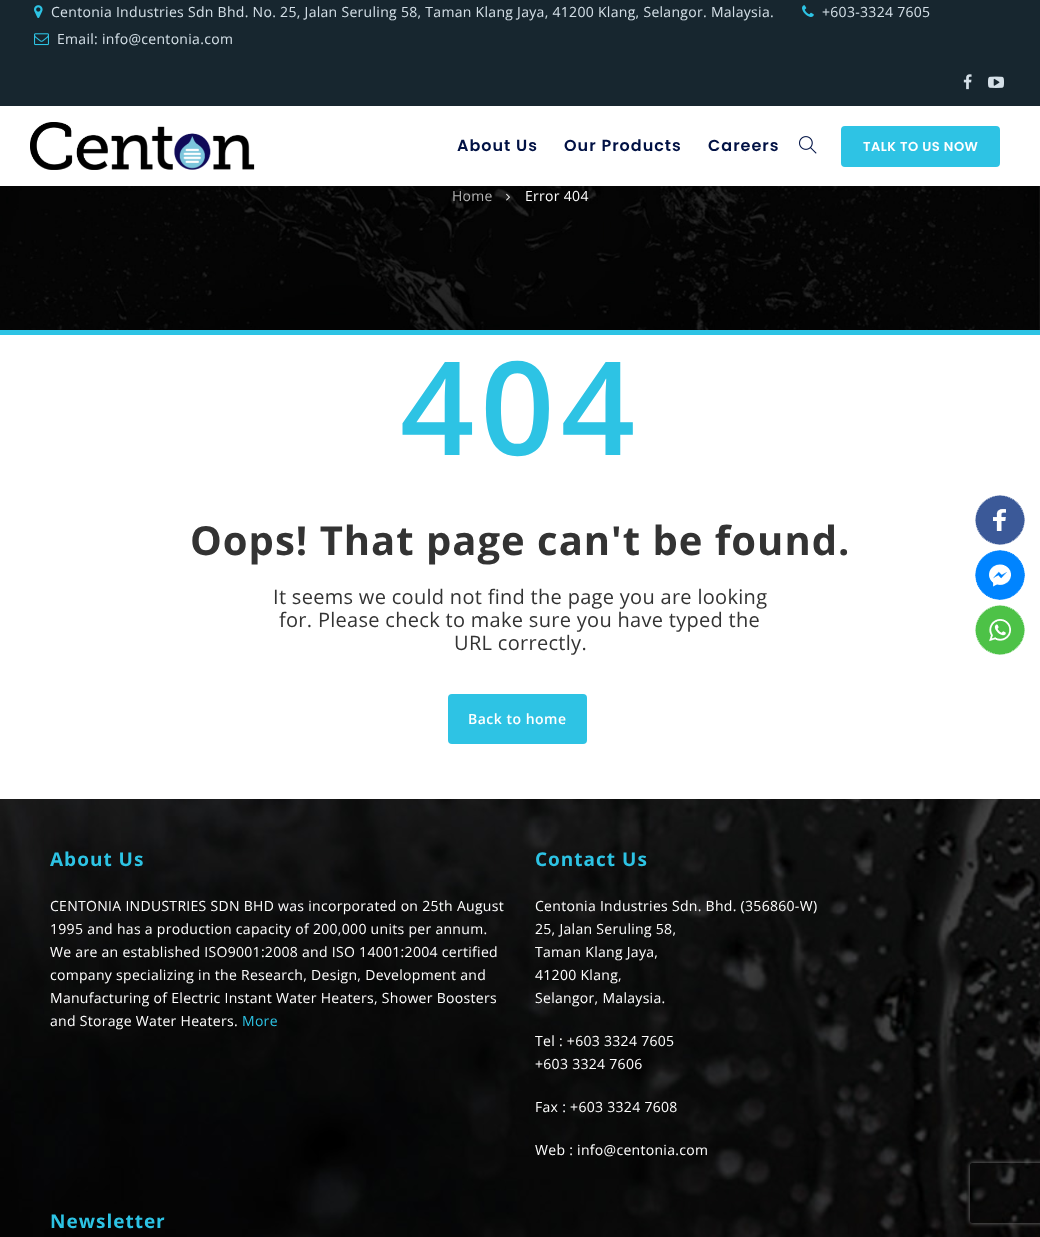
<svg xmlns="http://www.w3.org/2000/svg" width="1040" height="1237">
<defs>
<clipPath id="clip1"><path d="M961 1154h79v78h-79zm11 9h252c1 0 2 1 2 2v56c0 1-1 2-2 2h-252c-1 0-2-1-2-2v-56c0-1 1-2 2-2z" clip-rule="evenodd"/></clipPath>
</defs>
<rect width="100%" height="100%" fill="#fff"/>
<rect width="1040" height="106" fill="#17262f"/>
<image x="34" y="5" width="9" height="13" href="media/1.png"/>
<text x="51" y="17" style="font-family:Open Sans;font-size:14px;letter-spacing:0.3px;fill:#d5e0e8">Centonia Industries Sdn Bhd. No. 25, Jalan Seruling 58, Taman Klang Jaya, 41200 Klang, Selangor. Malaysia.</text>
<image x="802" y="5" width="12" height="12" href="media/2.png"/>
<text x="822" y="17" style="font-family:Open Sans;font-size:14px;letter-spacing:0.3px;fill:#d5e0e8">+603-3324 7605</text>
<image x="34" y="33" width="15" height="13" href="media/3.png"/>
<text x="57" y="44" style="font-family:Open Sans;font-size:14px;letter-spacing:0.3px;fill:#d5e0e8">Email: info@centonia.com</text>
<image x="963" y="74" width="9" height="16" href="media/4.png"/>
<image x="988" y="76" width="16" height="12" href="media/5.png"/>
<image x="30" y="122" width="225" height="48" href="media/6.png"/>
<text x="457" y="151" style="font-family:Poppins;font-size:16px;font-weight:600;letter-spacing:1px;fill:#014">About Us</text>
<text x="564" y="151" style="font-family:Poppins;font-size:16px;font-weight:600;letter-spacing:1px;fill:#014">Our Products</text>
<text x="708" y="151" style="font-family:Poppins;font-size:16px;font-weight:600;letter-spacing:1px;fill:#014">Careers</text>
<image x="799" y="136" width="18" height="18" href="media/7.png"/>
<rect x="842" y="127" width="157" height="39" rx="3" fill="#2ec3e4" stroke="#2ec3e4" stroke-width="2"/>
<text x="863" y="151" style="font-family:Poppins;font-size:13px;font-weight:600;letter-spacing:0.5px;fill:#fff">TALK TO US NOW</text>
<image x="0" y="186" width="1040" height="144" href="media/8.png"/>
<rect y="330" width="1040" height="5" fill="#2dc3e4"/>
<text x="452" y="201" style="font-family:Open Sans;font-size:14px;letter-spacing:0.3px;fill:#b5b5b5">Home</text>
<image x="506" y="193" width="4" height="8" href="media/9.png"/>
<text x="525" y="201" style="font-family:Open Sans;font-size:14px;letter-spacing:0.3px;fill:#fff">Error 404</text>
<text x="400" y="455" style="font-family:Open Sans;font-size:130px;font-weight:600;letter-spacing:6px;fill:#2dc3e4">404</text>
<text x="190" y="555" style="font-family:Open Sans;font-size:40px;font-weight:bold;letter-spacing:1px;fill:#333">Oops! That page can't be found.</text>
<text x="273" y="604" style="font-family:Open Sans;font-size:20px;letter-spacing:0.3px;fill:#333">It seems we could not find the page you are looking</text>
<text x="279" y="627" style="font-family:Open Sans;font-size:20px;letter-spacing:0.3px;fill:#333">for. Please check to make sure you have typed the</text>
<text x="454" y="650" style="font-family:Open Sans;font-size:20px;letter-spacing:0.3px;fill:#333">URL correctly.</text>
<rect x="448" y="694" width="139" height="50" rx="4" fill="#2ec3e4"/>
<text x="468" y="724" style="font-family:Open Sans;font-size:14px;font-weight:600;letter-spacing:0.5px;fill:#fff">Back to home</text>
<image x="975" y="495" width="50" height="50" href="media/10.png"/>
<image x="975" y="550" width="50" height="50" href="media/11.png"/>
<image x="975" y="605" width="50" height="50" href="media/12.png"/>
<image x="0" y="799" width="1040" height="438" href="media/13.png"/>
<text x="50" y="866" style="font-family:Open Sans;font-size:19px;font-weight:bold;letter-spacing:1px;fill:#2dc3e4">About Us</text>
<text x="50" y="911" style="font-family:Open Sans;font-size:14px;letter-spacing:0.3px;fill:#fff">CENTONIA INDUSTRIES SDN BHD was incorporated on 25th August</text>
<text x="50" y="934" style="font-family:Open Sans;font-size:14px;letter-spacing:0.3px;fill:#fff">1995 and has a production capacity of 200,000 units per annum.</text>
<text x="50" y="957" style="font-family:Open Sans;font-size:14px;letter-spacing:0.3px;fill:#fff">We are an established ISO9001:2008 and ISO 14001:2004 certified</text>
<text x="50" y="980" style="font-family:Open Sans;font-size:14px;letter-spacing:0.3px;fill:#fff">company specializing in the Research, Design, Development and</text>
<text x="50" y="1003" style="font-family:Open Sans;font-size:14px;letter-spacing:0.3px;fill:#fff">Manufacturing of Electric Instant Water Heaters, Shower Boosters</text>
<text x="50" y="1026" style="font-family:Open Sans;font-size:14px;letter-spacing:0.3px;fill:#fff">and Storage Water Heaters.</text>
<text x="242" y="1026" style="font-family:Open Sans;font-size:14px;letter-spacing:0.3px;fill:#2dc3e4">More</text>
<text x="535" y="866" style="font-family:Open Sans;font-size:19px;font-weight:bold;letter-spacing:1px;fill:#2dc3e4">Contact Us</text>
<text x="535" y="911" style="font-family:Open Sans;font-size:14px;letter-spacing:0.3px;fill:#fff">Centonia Industries Sdn. Bhd. (356860-W)</text>
<text x="535" y="934" style="font-family:Open Sans;font-size:14px;letter-spacing:0.3px;fill:#fff">25, Jalan Seruling 58,</text>
<text x="535" y="957" style="font-family:Open Sans;font-size:14px;letter-spacing:0.3px;fill:#fff">Taman Klang Jaya,</text>
<text x="535" y="980" style="font-family:Open Sans;font-size:14px;letter-spacing:0.3px;fill:#fff">41200 Klang,</text>
<text x="535" y="1003" style="font-family:Open Sans;font-size:14px;letter-spacing:0.3px;fill:#fff">Selangor, Malaysia.</text>
<text x="535" y="1046" style="font-family:Open Sans;font-size:14px;letter-spacing:0.3px;fill:#fff">Tel : +603 3324 7605</text>
<text x="535" y="1069" style="font-family:Open Sans;font-size:14px;letter-spacing:0.3px;fill:#fff">+603 3324 7606</text>
<text x="535" y="1112" style="font-family:Open Sans;font-size:14px;letter-spacing:0.3px;fill:#fff">Fax : +603 3324 7608</text>
<text x="535" y="1155" style="font-family:Open Sans;font-size:14px;letter-spacing:0.3px;fill:#fff">Web : info@centonia.com</text>
<text x="50" y="1228" style="font-family:Open Sans;font-size:19px;font-weight:bold;letter-spacing:1px;fill:#2dc3e4">Newsletter</text>
<g clip-path="url(#clip1)">
<rect x="970" y="1163" width="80" height="60" rx="2" fill="#808080" filter="blur(2.5px)"/>
</g>
</svg>
